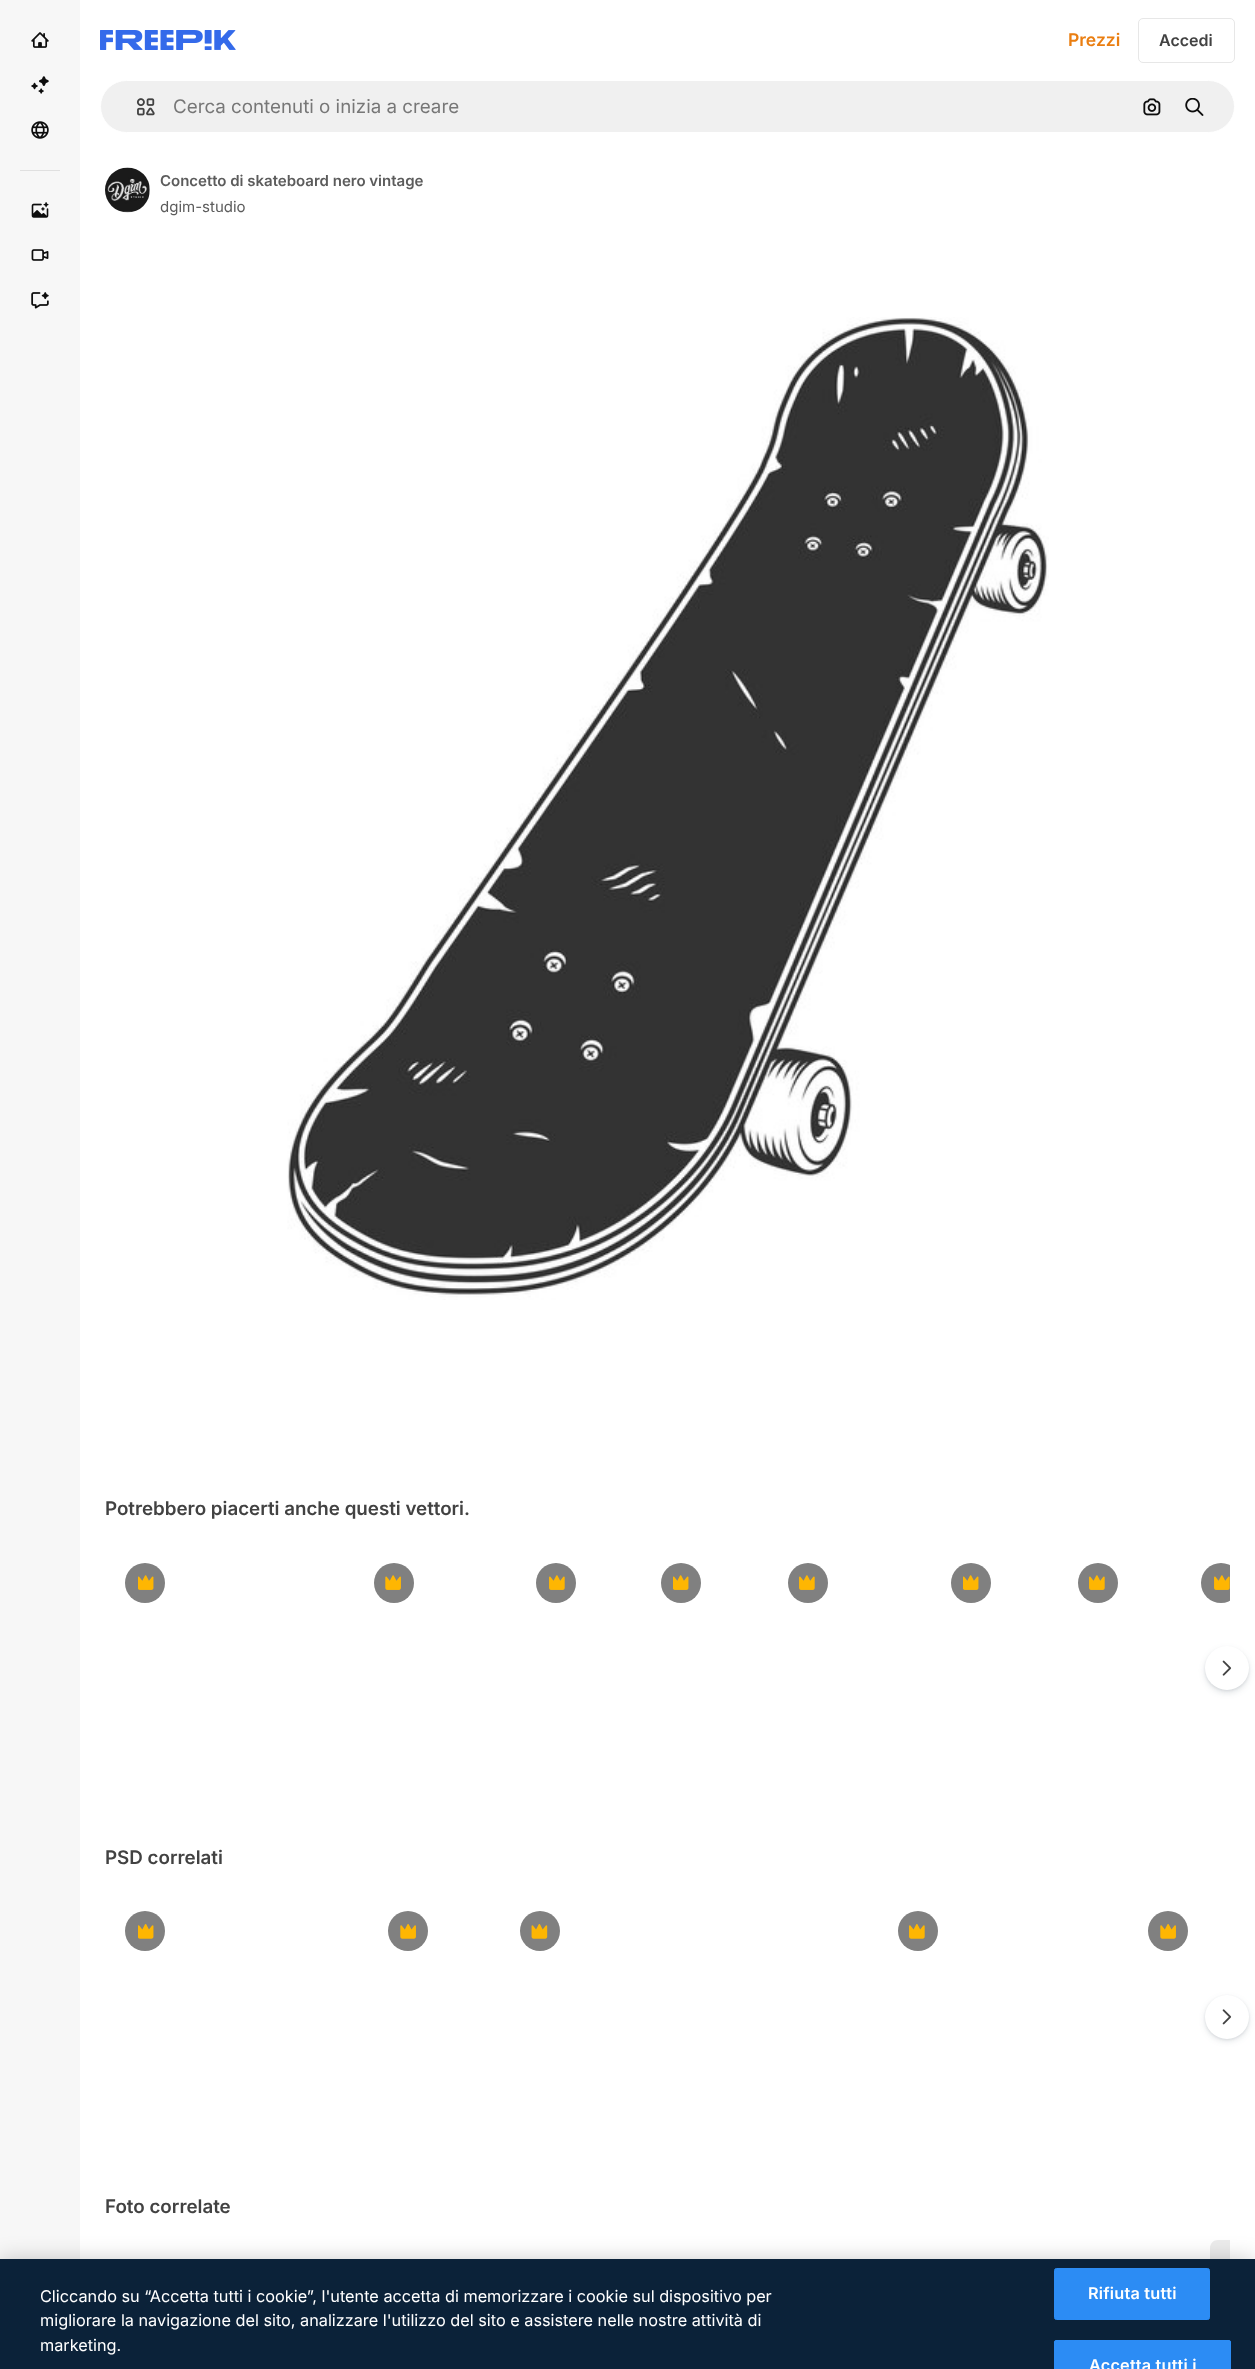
<svg xmlns="http://www.w3.org/2000/svg" width="1255" height="2369">
<defs>
<clipPath id="clip1"><rect x="105" y="1543" width="1125" height="250"/></clipPath>
<linearGradient id="g1" gradientUnits="userSpaceOnUse" x1="1199" y1="2270" x2="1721" y2="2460"><stop offset="0.08" stop-color="#ececec"/><stop offset="0.18" stop-color="#f5f5f5"/><stop offset="0.33" stop-color="#ececec"/></linearGradient>
</defs>
<rect width="100%" height="100%" fill="#fff"/>
<rect width="80" height="2259" fill="#f7f7f7"/>
<image x="31" y="32" width="18" height="16" href="media/1.png"/>
<image x="31" y="76" width="18" height="18" href="media/2.png"/>
<image x="31" y="121" width="18" height="18" href="media/3.png"/>
<rect x="20" y="170" width="40" height="1" fill="#e0e0e0"/>
<image x="31" y="202" width="18" height="16" href="media/4.png"/>
<image x="31" y="249" width="18" height="12" href="media/5.png"/>
<image x="31" y="292" width="18" height="17" href="media/6.png"/>
<image x="100" y="30" width="136" height="20" href="media/7.png"/>
<text x="1068" y="46" style="font-family:Inter;font-size:17.5px;font-weight:600;fill:#ea7e11">Prezzi</text>
<rect x="1138.5" y="18.5" width="96" height="44" rx="4.5" fill="none" stroke="#e7e7e7"/>
<text x="1159" y="46" style="font-family:Inter;font-size:16px;font-weight:600;fill:#424242">Accedi</text>
<rect x="100.5" y="80.5" width="1134" height="52" rx="26" fill="#f0f0f0" stroke="#fff"/>
<image x="136" y="98" width="19" height="18" href="media/8.png"/>
<text x="173" y="113" style="font-family:Inter;font-size:18.75px;fill:#777">Cerca contenuti o inizia a creare</text>
<image x="1143" y="98" width="18" height="18" href="media/9.png"/>
<image x="1185" y="98" width="19" height="18" href="media/10.png"/>
<image x="105" y="167" width="45" height="46" href="media/11.png"/>
<text x="160" y="186" style="font-family:Inter;font-size:15px;font-weight:600;fill:#5c5c5c">Concetto di skateboard nero vintage</text>
<text x="160" y="212" style="font-family:Inter;font-size:15px;fill:#5c5c5c">dgim-studio</text>
<image x="287" y="317" width="762" height="983" href="media/12.png"/>
<text x="105" y="1515" style="font-family:Inter;font-size:18.75px;font-weight:600;fill:#424242">Potrebbero piacerti anche questi vettori.</text>
<circle cx="145" cy="1583" r="20" fill="#808080"/>
<image x="138" y="1575" width="16" height="15" href="media/13.png"/>
<circle cx="394" cy="1583" r="20" fill="#808080"/>
<image x="385" y="1575" width="16" height="15" href="media/14.png"/>
<circle cx="556" cy="1583" r="20" fill="#808080"/>
<image x="549" y="1575" width="16" height="15" href="media/15.png"/>
<circle cx="681" cy="1583" r="20" fill="#808080"/>
<image x="673" y="1575" width="16" height="15" href="media/13.png"/>
<circle cx="808" cy="1583" r="20" fill="#808080"/>
<image x="799" y="1575" width="16" height="15" href="media/15.png"/>
<circle cx="971" cy="1583" r="20" fill="#808080"/>
<image x="963" y="1575" width="16" height="15" href="media/13.png"/>
<circle cx="1098" cy="1583" r="20" fill="#808080"/>
<image x="1089" y="1575" width="16" height="15" href="media/15.png"/>
<g clip-path="url(#clip1)">
<circle cx="1221" cy="1583" r="20" fill="#808080"/>
</g>
<image x="1214" y="1575" width="16" height="15" href="media/15.png"/>
<rect x="1205" y="1649" width="44" height="44" rx="22" fill="#37495726" filter="blur(3px)"/>
<rect x="1205" y="1648" width="44" height="43" rx="21.5" fill="#3749571a" filter="blur(1px)"/>
<circle cx="1227" cy="1668" r="22" fill="#fff"/>
<image x="1222" y="1660" width="10" height="16" href="media/16.png"/>
<text x="105" y="1864" style="font-family:Inter;font-size:18.75px;font-weight:600;fill:#424242">PSD correlati</text>
<circle cx="145" cy="1931" r="20" fill="#808080"/>
<image x="138" y="1924" width="16" height="15" href="media/17.png"/>
<circle cx="408" cy="1931" r="20" fill="#808080"/>
<image x="400" y="1924" width="16" height="15" href="media/18.png"/>
<circle cx="540" cy="1931" r="20" fill="#808080"/>
<image x="531" y="1924" width="17" height="15" href="media/19.png"/>
<circle cx="918" cy="1931" r="20" fill="#808080"/>
<image x="909" y="1924" width="16" height="15" href="media/20.png"/>
<circle cx="1168" cy="1931" r="20" fill="#808080"/>
<image x="1160" y="1924" width="16" height="15" href="media/18.png"/>
<rect x="1205" y="1998" width="44" height="43" rx="21.5" fill="#37495726" filter="blur(3px)"/>
<rect x="1205" y="1996" width="44" height="44" rx="22" fill="#3749571a" filter="blur(1px)"/>
<circle cx="1227" cy="2017" r="22" fill="#fff"/>
<image x="1222" y="2009" width="10" height="16" href="media/21.png"/>
<text x="105" y="2213" style="font-family:Inter;font-size:18.75px;font-weight:600;fill:#424242">Foto correlate</text>
<path d="M1218 2240h12v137h-12c-4.5 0-8-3.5-8-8v-121c0-4.5 3.5-8 8-8z" fill="url(#g1)"/>
<rect y="2259" width="1255" height="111" fill="#00000033" filter="blur(11px)"/>
<rect y="2259" width="1255" height="110" fill="#0b2239"/>
<text x="40" y="2302" style="font-family:Inter;font-size:16.25px;fill:#fff">Cliccando su “Accetta tutti i cookie”, l'utente accetta di memorizzare i cookie sul dispositivo per</text>
<text x="40" y="2326" style="font-family:Inter;font-size:16.25px;fill:#fff">migliorare la navigazione del sito, analizzare l'utilizzo del sito e assistere nelle nostre attività di</text>
<text x="40" y="2351" style="font-family:Inter;font-size:16.25px;fill:#fff">marketing.</text>
<rect x="1054.5" y="2268.5" width="155" height="51" rx="2" fill="#2c8cf4" stroke="#2c8cf4"/>
<text x="1088" y="2299" style="font-family:Inter;font-size:16.25px;font-weight:600;letter-spacing:0.2px;fill:#fff">Rifiuta tutti</text>
<path d="M1056.5 2340h172c1.5 0 2.5 1 2.5 2.5v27.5h-177v-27.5c0-1.5 1-2.5 2.5-2.5z" fill="#2c8cf4"/>
<rect x="1054.5" y="2340.5" width="176" height="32" rx="2" fill="none" stroke="#2c8cf4"/>
<text x="1089" y="2371" style="font-family:Inter;font-size:16.25px;font-weight:600;letter-spacing:0.2px;fill:#fff">Accetta tutti i</text>
</svg>
